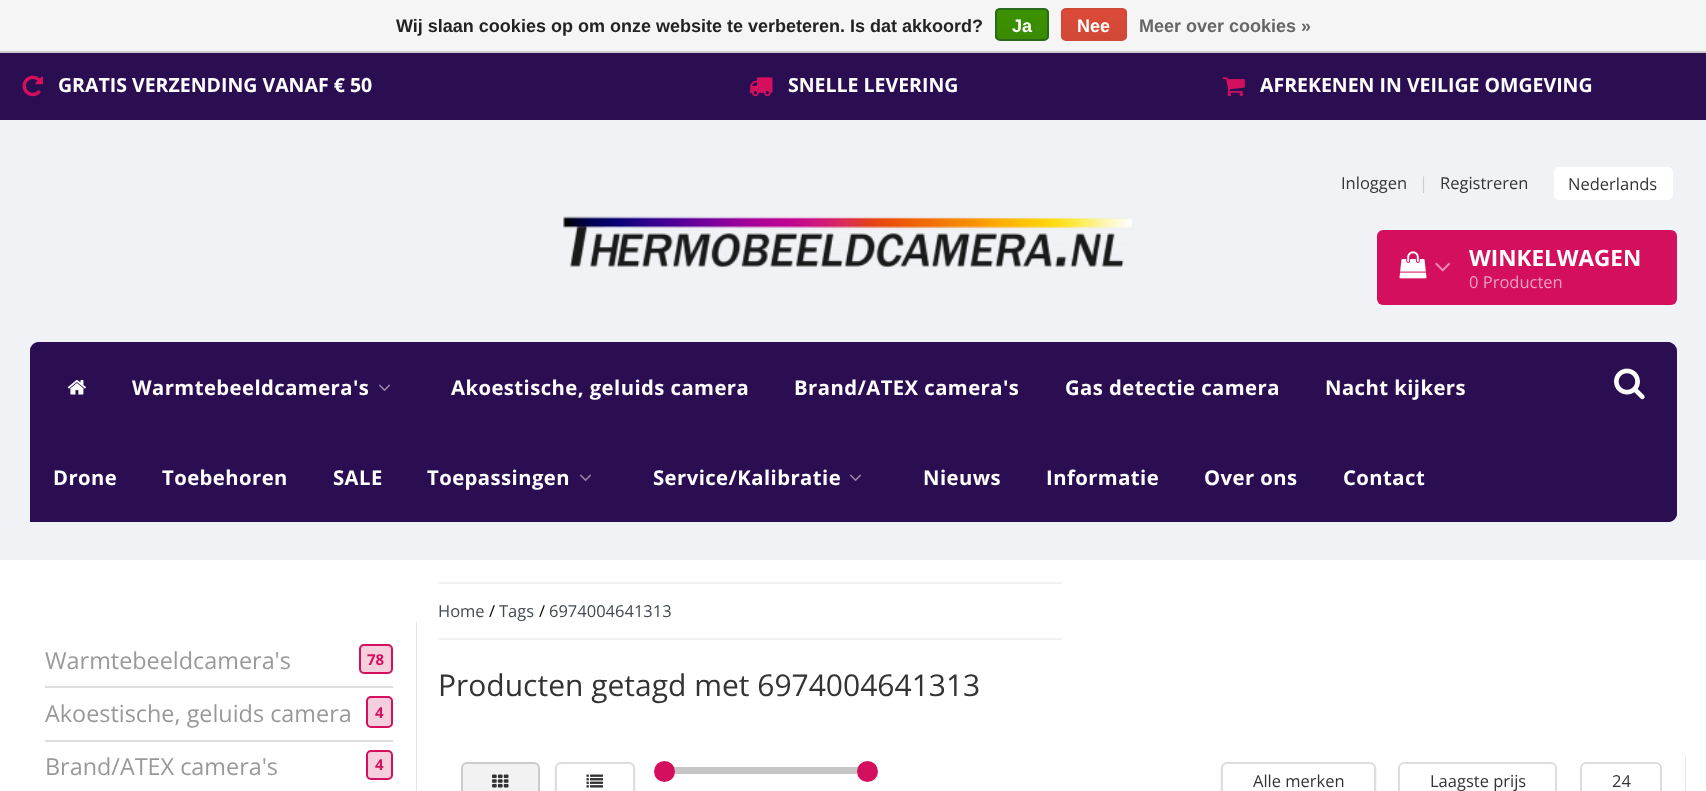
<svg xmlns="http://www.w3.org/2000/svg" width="1706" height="791">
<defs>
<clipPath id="clip1"><rect x="995" y="8" width="54" height="33" rx="5"/></clipPath>
<linearGradient id="g1" gradientUnits="userSpaceOnUse" x1="1022" y1="9" x2="1022" y2="39"><stop offset="0" stop-color="#3c9300"/><stop offset="1" stop-color="#398a00"/></linearGradient>
<clipPath id="clip2"><rect x="1061" y="8" width="66" height="33" rx="5"/></clipPath>
<linearGradient id="g2" gradientUnits="userSpaceOnUse" x1="1094" y1="9" x2="1094" y2="39"><stop offset="0" stop-color="#dc4a38"/><stop offset="1" stop-color="#d14836"/></linearGradient>
</defs>
<rect width="100%" height="100%" fill="#fff"/>
<rect width="1706" height="51" fill="#f5f5f5"/>
<rect y="51" width="1706" height="2" fill="#ccc"/>
<text x="396" y="32" style="font-family:Liberation Sans;font-size:18px;font-weight:bold;fill:#222">Wij slaan cookies op om onze website te verbeteren. Is dat akkoord?</text>
<g clip-path="url(#clip1)">
<rect x="995" y="9" width="54" height="30" fill="url(#g1)"/>
</g>
<rect x="996" y="9" width="52" height="31" rx="4" fill="none" stroke="#29691d" stroke-width="2"/>
<text x="1012" y="32" style="font-family:Liberation Sans;font-size:18px;font-weight:bold;fill:#fff">Ja</text>
<g clip-path="url(#clip2)">
<rect x="1061" y="9" width="66" height="30" fill="url(#g2)"/>
</g>
<rect x="1062" y="9" width="64" height="31" rx="4" fill="none" stroke="#d14836" stroke-width="2"/>
<text x="1077" y="32" style="font-family:Liberation Sans;font-size:18px;font-weight:bold;fill:#fff">Nee</text>
<text x="1139" y="32" style="font-family:Liberation Sans;font-size:18px;font-weight:bold;fill:#666">Meer over cookies »</text>
<rect y="53" width="1706" height="67" fill="#2b0d51"/>
<image x="22" y="75" width="22" height="22" href="media/1.png"/>
<text x="58" y="92" style="font-family:Open Sans;font-size:19.5px;font-weight:bold;fill:#fff">GRATIS VERZENDING VANAF € 50</text>
<image x="749" y="77" width="24" height="20" href="media/2.png"/>
<text x="788" y="92" style="font-family:Open Sans;font-size:19.5px;font-weight:bold;fill:#fff">SNELLE LEVERING</text>
<image x="1222" y="77" width="23" height="20" href="media/3.png"/>
<text x="1260" y="92" style="font-family:Open Sans;font-size:19.5px;font-weight:bold;fill:#fff">AFREKENEN IN VEILIGE OMGEVING</text>
<rect y="120" width="1706" height="440" fill="#f1f2f6"/>
<image x="563" y="216" width="569" height="52" href="media/4.png"/>
<text x="1341" y="189" style="font-family:Open Sans;font-size:16.5px;fill:#333">Inloggen</text>
<text x="1419" y="189" style="font-family:Open Sans;font-size:16.5px;fill:#cbcccf">|</text>
<text x="1440" y="189" style="font-family:Open Sans;font-size:16.5px;fill:#333">Registreren</text>
<rect x="1554" y="167" width="119" height="33" rx="5" fill="#fff"/>
<text x="1568" y="190" style="font-family:Open Sans;font-size:16.5px;fill:#333">Nederlands</text>
<rect x="1377" y="230" width="300" height="75" rx="6" fill="#d4105e"/>
<image x="1399" y="251" width="28" height="28" href="media/5.png"/>
<image x="1435" y="262" width="16" height="10" href="media/6.png"/>
<text x="1469" y="266" style="font-family:Open Sans;font-size:22.5px;font-weight:bold;fill:#fff">WINKELWAGEN</text>
<text x="1469" y="288" style="font-family:Open Sans;font-size:16.5px;fill:#ee9fbf">0 Producten</text>
<rect x="30" y="342" width="1647" height="180" rx="9" fill="#2b0d51"/>
<rect x="1668" y="342" width="2" height="1" fill="#2b0d51"/>
<image x="1614" y="368" width="31" height="32" href="media/7.png"/>
<path d="M39 342h71v90h-71c-5 0-9-4-9-9v-72c0-5 4-9 9-9z" fill="#2b0d51"/>
<image x="67" y="380" width="19" height="15" href="media/8.png"/>
<text x="132" y="395" style="font-family:Open Sans;font-size:20.25px;font-weight:bold;letter-spacing:0.45px;fill:#fff">Warmtebeeldcamera's</text>
<image x="379" y="384" width="12" height="7" href="media/9.png"/>
<text x="451" y="395" style="font-family:Open Sans;font-size:20.25px;font-weight:bold;letter-spacing:0.45px;fill:#fff">Akoestische, geluids camera</text>
<text x="794" y="395" style="font-family:Open Sans;font-size:20.25px;font-weight:bold;letter-spacing:0.45px;fill:#fff">Brand/ATEX camera's</text>
<text x="1065" y="395" style="font-family:Open Sans;font-size:20.25px;font-weight:bold;letter-spacing:0.45px;fill:#fff">Gas detectie camera</text>
<text x="1325" y="395" style="font-family:Open Sans;font-size:20.25px;font-weight:bold;letter-spacing:0.45px;fill:#fff">Nacht kijkers</text>
<rect x="30" y="513" width="9" height="9" fill="#2b0d51"/>
<text x="53" y="485" style="font-family:Open Sans;font-size:20.25px;font-weight:bold;letter-spacing:0.45px;fill:#fff">Drone</text>
<text x="162" y="485" style="font-family:Open Sans;font-size:20.25px;font-weight:bold;letter-spacing:0.45px;fill:#fff">Toebehoren</text>
<text x="333" y="485" style="font-family:Open Sans;font-size:20.25px;font-weight:bold;letter-spacing:0.45px;fill:#fff">SALE</text>
<text x="427" y="485" style="font-family:Open Sans;font-size:20.25px;font-weight:bold;letter-spacing:0.45px;fill:#fff">Toepassingen</text>
<image x="580" y="474" width="12" height="7" href="media/9.png"/>
<text x="653" y="485" style="font-family:Open Sans;font-size:20.25px;font-weight:bold;letter-spacing:0.45px;fill:#fff">Service/Kalibratie</text>
<image x="850" y="474" width="12" height="7" href="media/9.png"/>
<text x="923" y="485" style="font-family:Open Sans;font-size:20.25px;font-weight:bold;letter-spacing:0.45px;fill:#fff">Nieuws</text>
<text x="1046" y="485" style="font-family:Open Sans;font-size:20.25px;font-weight:bold;letter-spacing:0.45px;fill:#fff">Informatie</text>
<text x="1204" y="485" style="font-family:Open Sans;font-size:20.25px;font-weight:bold;letter-spacing:0.45px;fill:#fff">Over ons</text>
<text x="1343" y="485" style="font-family:Open Sans;font-size:20.25px;font-weight:bold;letter-spacing:0.45px;fill:#fff">Contact</text>
<path d="M30 507h1647v6c0 5-4 9-9 9h-1629c-5 0-9-4-9-9z" fill="#2b0d51"/>
<path d="M24 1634c1 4 5 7 9 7h375c5 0 9-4 9-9v-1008c0-2-1-4-2-5l1 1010c0 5-5 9-10 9h-374c-3 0-6-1-8-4z" fill="#e5e5e5"/>
<rect x="23" y="612" width="393" height="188" rx="9" fill="#fff"/>
<text x="45" y="669" style="font-family:Open Sans;font-size:23.4px;fill:#999">Warmtebeeldcamera's</text>
<rect x="360" y="645" width="32" height="28" rx="4" fill="#f6cfde" stroke="#d4105e" stroke-width="2"/>
<text x="367" y="665" style="font-family:Open Sans;font-size:15px;font-weight:bold;fill:#d4105e">78</text>
<rect x="45" y="686" width="348" height="2" fill="#ddd"/>
<text x="45" y="722" style="font-family:Open Sans;font-size:23.4px;fill:#999">Akoestische, geluids camera</text>
<rect x="367" y="697" width="25" height="30" rx="4" fill="#f6cfde" stroke="#d4105e" stroke-width="2"/>
<text x="375" y="718" style="font-family:Open Sans;font-size:15px;font-weight:bold;fill:#d4105e">4</text>
<rect x="45" y="740" width="348" height="2" fill="#ddd"/>
<text x="45" y="775" style="font-family:Open Sans;font-size:23.4px;fill:#999">Brand/ATEX camera's</text>
<rect x="367" y="751" width="25" height="28" rx="4" fill="#f6cfde" stroke="#d4105e" stroke-width="2"/>
<text x="375" y="770" style="font-family:Open Sans;font-size:15px;font-weight:bold;fill:#d4105e">4</text>
<rect x="438" y="582" width="624" height="2" fill="#f2f2f2"/>
<rect x="438" y="638" width="624" height="2" fill="#f2f2f2"/>
<text x="438" y="617" style="font-family:Open Sans;font-size:16.5px;fill:#434a54">Home</text>
<text x="489" y="617" style="font-family:Open Sans;font-size:16.5px;fill:#000">/</text>
<text x="499" y="617" style="font-family:Open Sans;font-size:16.5px;fill:#434a54">Tags</text>
<text x="539" y="617" style="font-family:Open Sans;font-size:16.5px;fill:#000">/</text>
<text x="549" y="617" style="font-family:Open Sans;font-size:16.5px;fill:#434a54">6974004641313</text>
<text x="438" y="696" style="font-family:Open Sans;font-size:30px;fill:#333">Producten getagd met 6974004641313</text>
<path d="M441 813c1 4 4 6 8 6h1228c5 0 9-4 9-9v-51c0-2-1-4-2-5v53c0 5-4 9-8 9h-1229c-2 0-5-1-6-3z" fill="#e5e5e5"/>
<rect x="438" y="747" width="1247" height="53" rx="9" fill="#fff"/>
<rect x="462" y="763" width="77" height="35" rx="5" fill="#f2f2f2" stroke="#ccc" stroke-width="2"/>
<image x="492" y="774" width="17" height="14" href="media/10.png"/>
<rect x="555" y="764" width="80" height="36" rx="6" fill="#2219191a" filter="blur(1px)"/>
<rect x="556" y="763" width="78" height="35" rx="5" fill="#fff" stroke="#ddd" stroke-width="2"/>
<image x="586" y="774" width="17" height="14" href="media/11.png"/>
<rect x="674" y="767" width="189" height="7" fill="#c6c6c6"/>
<circle cx="664.5" cy="771.5" r="10.5" fill="#d4105e"/>
<circle cx="867.5" cy="771.5" r="10.5" fill="#d4105e"/>
<rect x="1221" y="764" width="155" height="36" rx="6" fill="#2219191a" filter="blur(1px)"/>
<rect x="1222" y="763" width="153" height="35" rx="5" fill="#fff" stroke="#ddd" stroke-width="2"/>
<text x="1253" y="787" style="font-family:Open Sans;font-size:16.5px;fill:#333">Alle merken</text>
<rect x="1399" y="763" width="157" height="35" rx="5" fill="none" stroke="#ddd" stroke-width="2"/>
<text x="1430" y="787" style="font-family:Open Sans;font-size:16.5px;fill:#333">Laagste prijs</text>
<rect x="1581" y="763" width="80" height="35" rx="5" fill="none" stroke="#ddd" stroke-width="2"/>
<text x="1612" y="787" style="font-family:Open Sans;font-size:16.5px;fill:#333">24</text>
</svg>
